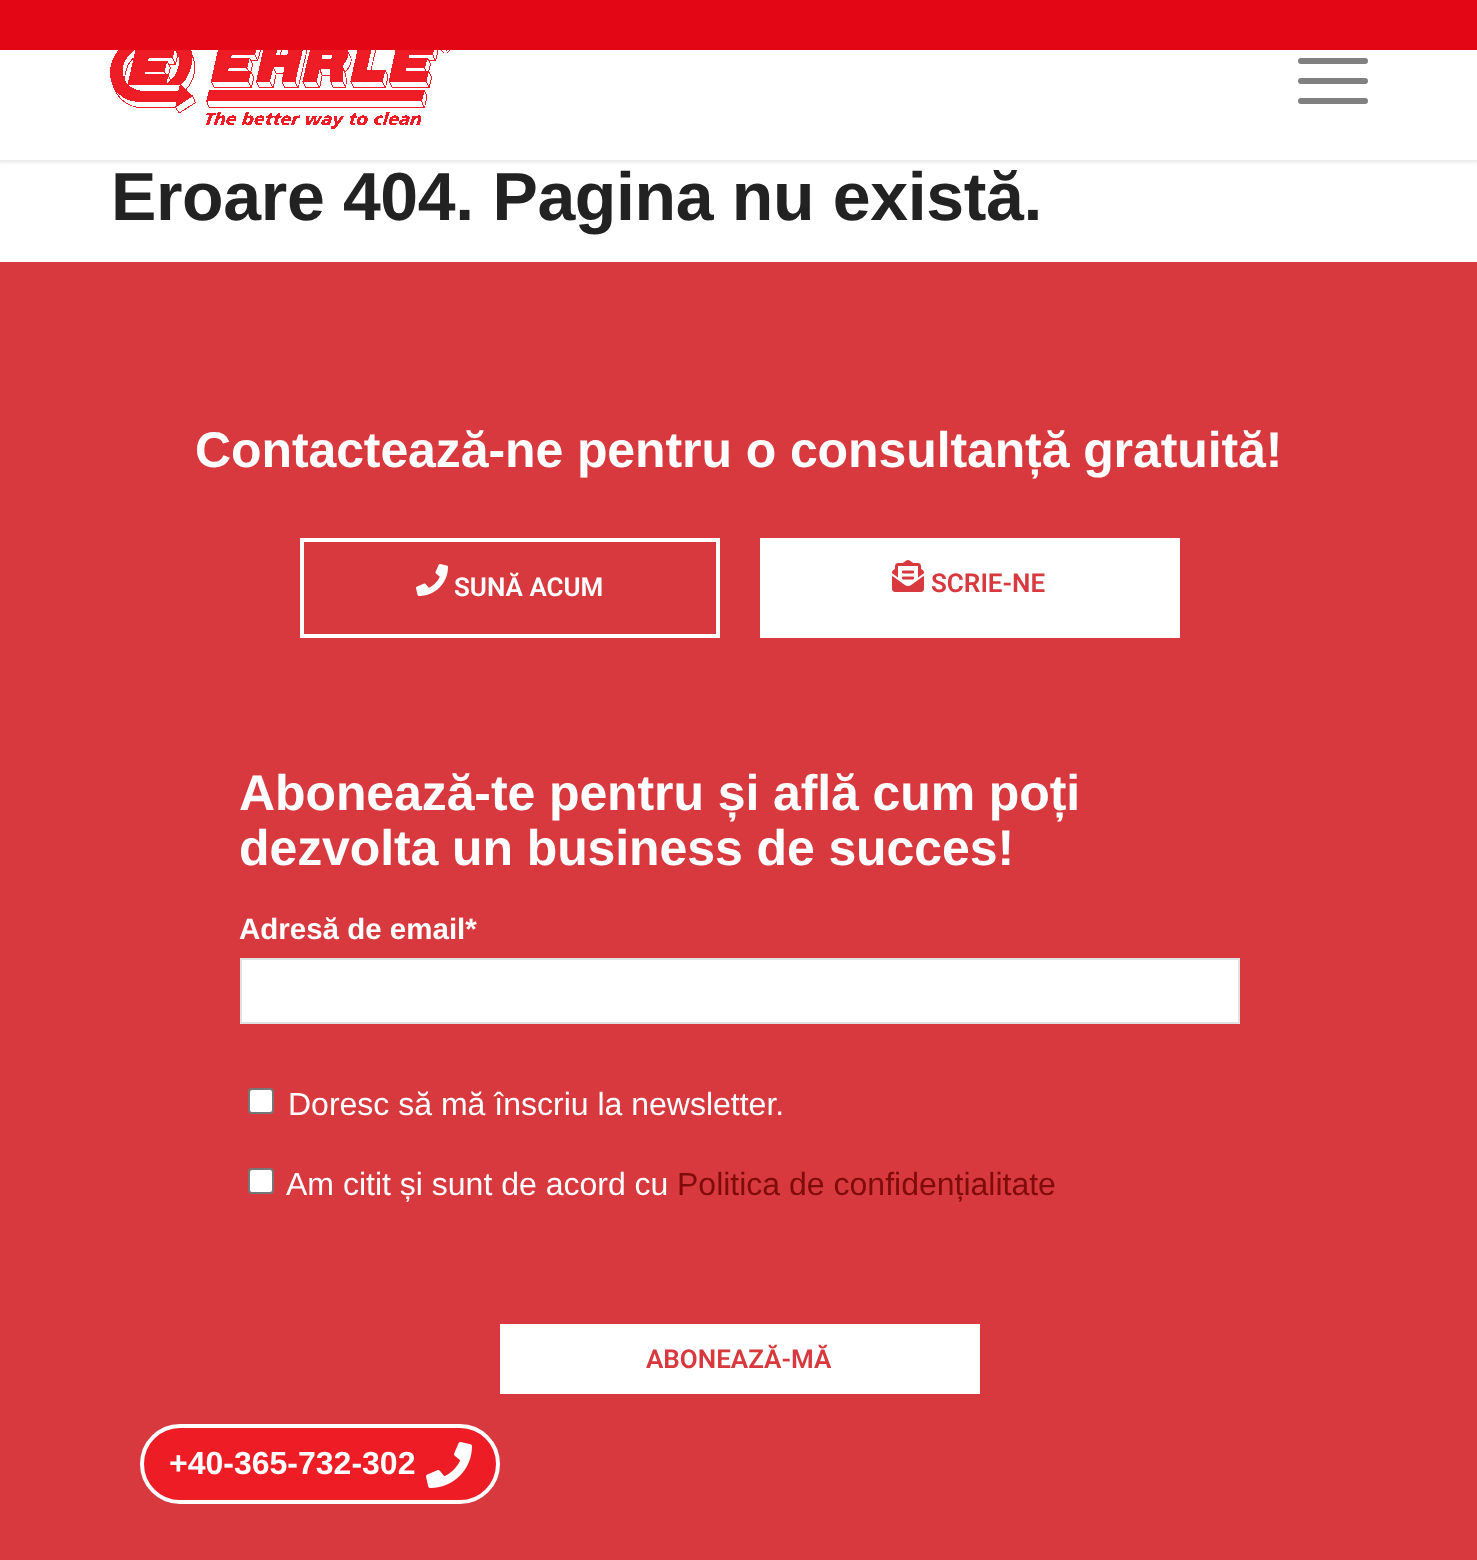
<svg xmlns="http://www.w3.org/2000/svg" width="1477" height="1560">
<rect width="100%" height="100%" fill="#fff"/>
<rect x="-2" y="-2" width="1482" height="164" fill="#0000001a" filter="blur(2px)"/>
<rect width="1477" height="50" fill="#e30615"/>
<rect y="50" width="1477" height="110" fill="#fff"/>
<image x="110" y="50" width="340" height="79" href="media/1.png"/>
<rect x="1298" y="78" width="70" height="6" rx="3" fill="#808080"/>
<rect x="1298" y="58" width="70" height="6" rx="3" fill="#808080"/>
<rect x="1298" y="98" width="70" height="6" rx="3" fill="#808080"/>
<text x="111" y="220" style="font-family:Liberation Sans;font-size:68px;font-weight:bold;letter-spacing:-0.35px;fill:#222">Eroare 404. Pagina nu există.</text>
<rect y="262" width="1477" height="1298" fill="#d7393e"/>
<text x="195" y="467" style="font-family:Liberation Sans;font-size:50px;font-weight:bold;letter-spacing:-0.1px;fill:#fff">Contactează-ne pentru o consultanță gratuită!</text>
<rect x="302" y="540" width="416" height="96" fill="none" stroke="#fff" stroke-width="4"/>
<image x="416" y="564" width="32" height="32" href="media/2.png"/>
<text x="454" y="596" style="font-family:Roboto;font-size:26px;font-weight:600;fill:#fff">SUNĂ ACUM</text>
<rect x="760" y="538" width="420" height="100" fill="#fff"/>
<image x="892" y="560" width="32" height="32" href="media/3.png"/>
<text x="931" y="592" style="font-family:Roboto;font-size:26px;font-weight:600;fill:#d7393e">SCRIE-NE</text>
<text x="239" y="810" style="font-family:Liberation Sans;font-size:50px;font-weight:bold;letter-spacing:-0.1px;fill:#fff">Abonează-te pentru și află cum poți</text>
<text x="239" y="865" style="font-family:Liberation Sans;font-size:50px;font-weight:bold;letter-spacing:-0.1px;fill:#fff">dezvolta un business de succes!</text>
<text x="239" y="939" style="font-family:Liberation Sans;font-size:29.5px;font-weight:bold;fill:#fff">Adresă de email*</text>
<rect x="241" y="959" width="998" height="64" fill="#fff" stroke="#e1e1e1" stroke-width="2"/>
<rect x="249" y="1089" width="24" height="24" rx="3" fill="#fff" stroke="#767676" stroke-width="2"/>
<text x="288" y="1115" style="font-family:Liberation Sans;font-size:32px;fill:#fff">Doresc să mă înscriu la newsletter.</text>
<rect x="249" y="1169" width="24" height="24" rx="3" fill="#fff" stroke="#767676" stroke-width="2"/>
<text x="286" y="1195" style="font-family:Liberation Sans;font-size:32px;fill:#fff">Am citit și sunt de acord cu</text>
<text x="677" y="1195" style="font-family:Liberation Sans;font-size:32px;fill:#800b0b">Politica de confidențialitate</text>
<rect x="500" y="1324" width="480" height="70" fill="#fff"/>
<text x="646" y="1368" style="font-family:Roboto;font-size:26px;font-weight:600;fill:#d7393e">ABONEAZĂ-MĂ</text>
<rect x="142" y="1426" width="356" height="76" rx="38" fill="#ee1c25" stroke="#fff" stroke-width="4"/>
<text x="169" y="1474" style="font-family:Liberation Sans;font-size:32px;font-weight:bold;fill:#fff">+40-365-732-302</text>
<image x="426" y="1442" width="46" height="46" href="media/4.png"/>
</svg>
